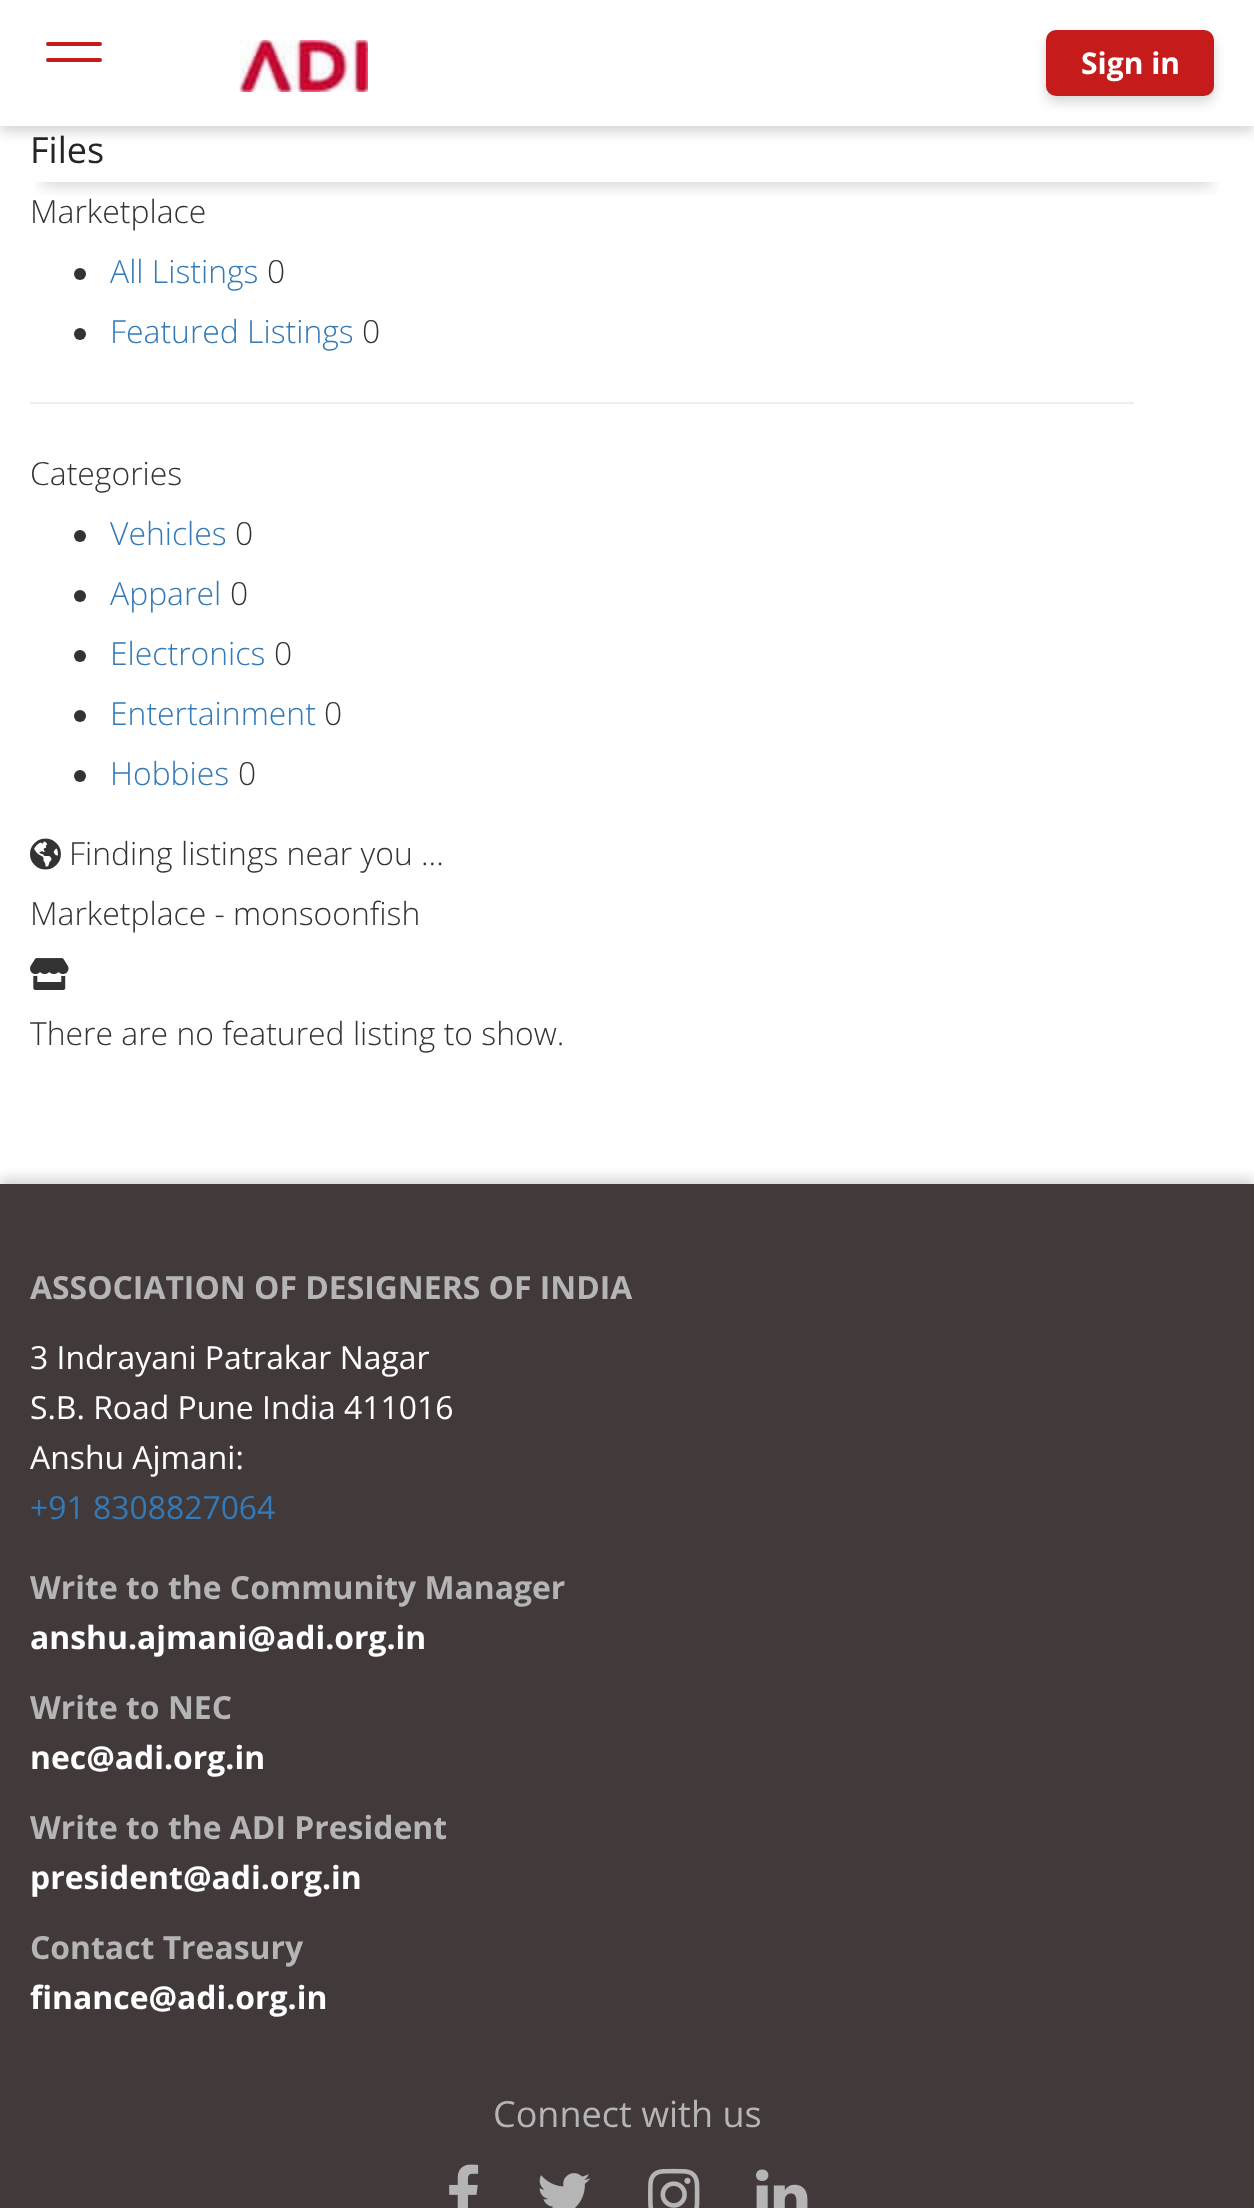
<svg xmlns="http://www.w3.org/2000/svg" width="1254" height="2208">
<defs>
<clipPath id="clip1"><rect x="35" y="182" width="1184" height="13"/></clipPath>
</defs>
<rect width="100%" height="100%" fill="#fff"/>
<rect y="6" width="1254" height="126" fill="#00000029" filter="blur(6px)"/>
<g clip-path="url(#clip1)">
<rect x="42" y="-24" width="1170" height="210" fill="#00000029" filter="blur(8px)"/>
</g>
<rect width="1254" height="126" fill="#fff"/>
<rect x="46" y="42" width="56" height="4" rx="2" fill="#c51c1b"/>
<rect x="46" y="58" width="56" height="4" rx="2" fill="#c51c1b"/>
<image x="239" y="40" width="129" height="52" href="media/1.png"/>
<rect x="1046" y="36" width="168" height="66" rx="10" fill="#00000029" filter="blur(6px)"/>
<rect x="1046" y="30" width="168" height="66" rx="10" fill="#c51c1b"/>
<text x="1081" y="74" style="font-family:Open Sans;font-size:30px;font-weight:bold;fill:#fff">Sign in</text>
<text x="30" y="163" style="font-family:Open Sans;font-size:36px;fill:#252525">Files</text>
<text x="30" y="223" style="font-family:Open Sans;font-size:31.9px;font-weight:300;fill:#333">Marketplace</text>
<circle cx="80" cy="274" r="6" fill="#333"/>
<text x="110" y="283" style="font-family:Open Sans;font-size:31.9px;font-weight:300;fill:#337ab7">All Listings</text>
<text x="267" y="283" style="font-family:Open Sans;font-size:31.9px;font-weight:300;fill:#333">0</text>
<circle cx="80" cy="334" r="6" fill="#333"/>
<text x="110" y="343" style="font-family:Open Sans;font-size:31.9px;font-weight:300;fill:#337ab7">Featured Listings</text>
<text x="362" y="343" style="font-family:Open Sans;font-size:31.9px;font-weight:300;fill:#333">0</text>
<rect x="30" y="402" width="1104" height="2" fill="#eee"/>
<text x="30" y="485" style="font-family:Open Sans;font-size:31.9px;font-weight:300;fill:#333">Categories</text>
<circle cx="80" cy="536" r="6" fill="#333"/>
<text x="110" y="545" style="font-family:Open Sans;font-size:31.9px;font-weight:300;fill:#337ab7">Vehicles</text>
<text x="235" y="545" style="font-family:Open Sans;font-size:31.9px;font-weight:300;fill:#333">0</text>
<circle cx="80" cy="596" r="6" fill="#333"/>
<text x="110" y="605" style="font-family:Open Sans;font-size:31.9px;font-weight:300;fill:#337ab7">Apparel</text>
<text x="230" y="605" style="font-family:Open Sans;font-size:31.9px;font-weight:300;fill:#333">0</text>
<circle cx="80" cy="656" r="6" fill="#333"/>
<text x="110" y="665" style="font-family:Open Sans;font-size:31.9px;font-weight:300;fill:#337ab7">Electronics</text>
<text x="274" y="665" style="font-family:Open Sans;font-size:31.9px;font-weight:300;fill:#333">0</text>
<circle cx="80" cy="716" r="6" fill="#333"/>
<text x="110" y="725" style="font-family:Open Sans;font-size:31.9px;font-weight:300;fill:#337ab7">Entertainment</text>
<text x="324" y="725" style="font-family:Open Sans;font-size:31.9px;font-weight:300;fill:#333">0</text>
<circle cx="80" cy="776" r="6" fill="#333"/>
<text x="110" y="785" style="font-family:Open Sans;font-size:31.9px;font-weight:300;fill:#337ab7">Hobbies</text>
<text x="238" y="785" style="font-family:Open Sans;font-size:31.9px;font-weight:300;fill:#333">0</text>
<image x="30" y="838" width="31" height="32" href="media/2.png"/>
<text x="69" y="865" style="font-family:Open Sans;font-size:31.9px;font-weight:300;fill:#333">Finding listings near you ...</text>
<text x="30" y="925" style="font-family:Open Sans;font-size:31.9px;font-weight:300;fill:#333">Marketplace - monsoonfish</text>
<image x="30" y="958" width="39" height="32" href="media/3.png"/>
<text x="30" y="1045" style="font-family:Open Sans;font-size:31.9px;font-weight:300;fill:#333">There are no featured listing to show.</text>
<rect y="1178" width="1254" height="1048" fill="#00000029" filter="blur(6px)"/>
<rect y="1184" width="1254" height="1024" fill="#423a3a"/>
<text x="30" y="1299" style="font-family:Open Sans;font-size:31.9px;font-weight:bold;fill:#b5b5b5">ASSOCIATION OF DESIGNERS OF INDIA</text>
<text x="30" y="1369" style="font-family:Open Sans;font-size:31.9px;fill:#fff">3 Indrayani Patrakar Nagar</text>
<text x="30" y="1419" style="font-family:Open Sans;font-size:31.9px;fill:#fff">S.B. Road Pune India 411016</text>
<text x="30" y="1469" style="font-family:Open Sans;font-size:31.9px;fill:#fff">Anshu Ajmani:</text>
<text x="30" y="1519" style="font-family:Open Sans;font-size:31.9px;fill:#337ab7">+91 8308827064</text>
<text x="30" y="1599" style="font-family:Open Sans;font-size:31.9px;font-weight:bold;fill:#b5b5b5">Write to the Community Manager</text>
<text x="30" y="1649" style="font-family:Open Sans;font-size:31.9px;font-weight:bold;fill:#fff">anshu.ajmani@adi.org.in</text>
<text x="30" y="1719" style="font-family:Open Sans;font-size:31.9px;font-weight:bold;fill:#b5b5b5">Write to NEC</text>
<text x="30" y="1769" style="font-family:Open Sans;font-size:31.9px;font-weight:bold;fill:#fff">nec@adi.org.in</text>
<text x="30" y="1839" style="font-family:Open Sans;font-size:31.9px;font-weight:bold;fill:#b5b5b5">Write to the ADI President</text>
<text x="30" y="1889" style="font-family:Open Sans;font-size:31.9px;font-weight:bold;fill:#fff">president@adi.org.in</text>
<text x="30" y="1959" style="font-family:Open Sans;font-size:31.9px;font-weight:bold;fill:#b5b5b5">Contact Treasury</text>
<text x="30" y="2009" style="font-family:Open Sans;font-size:31.9px;font-weight:bold;fill:#fff">finance@adi.org.in</text>
<text x="493" y="2127" style="font-family:Open Sans;font-size:36px;fill:#b5b5b5">Connect with us</text>
<image x="449" y="2164" width="30" height="44" href="media/4.png"/>
<image x="539" y="2173" width="51" height="35" href="media/5.png"/>
<image x="648" y="2168" width="52" height="40" href="media/6.png"/>
<image x="756" y="2169" width="52" height="39" href="media/7.png"/>
</svg>
